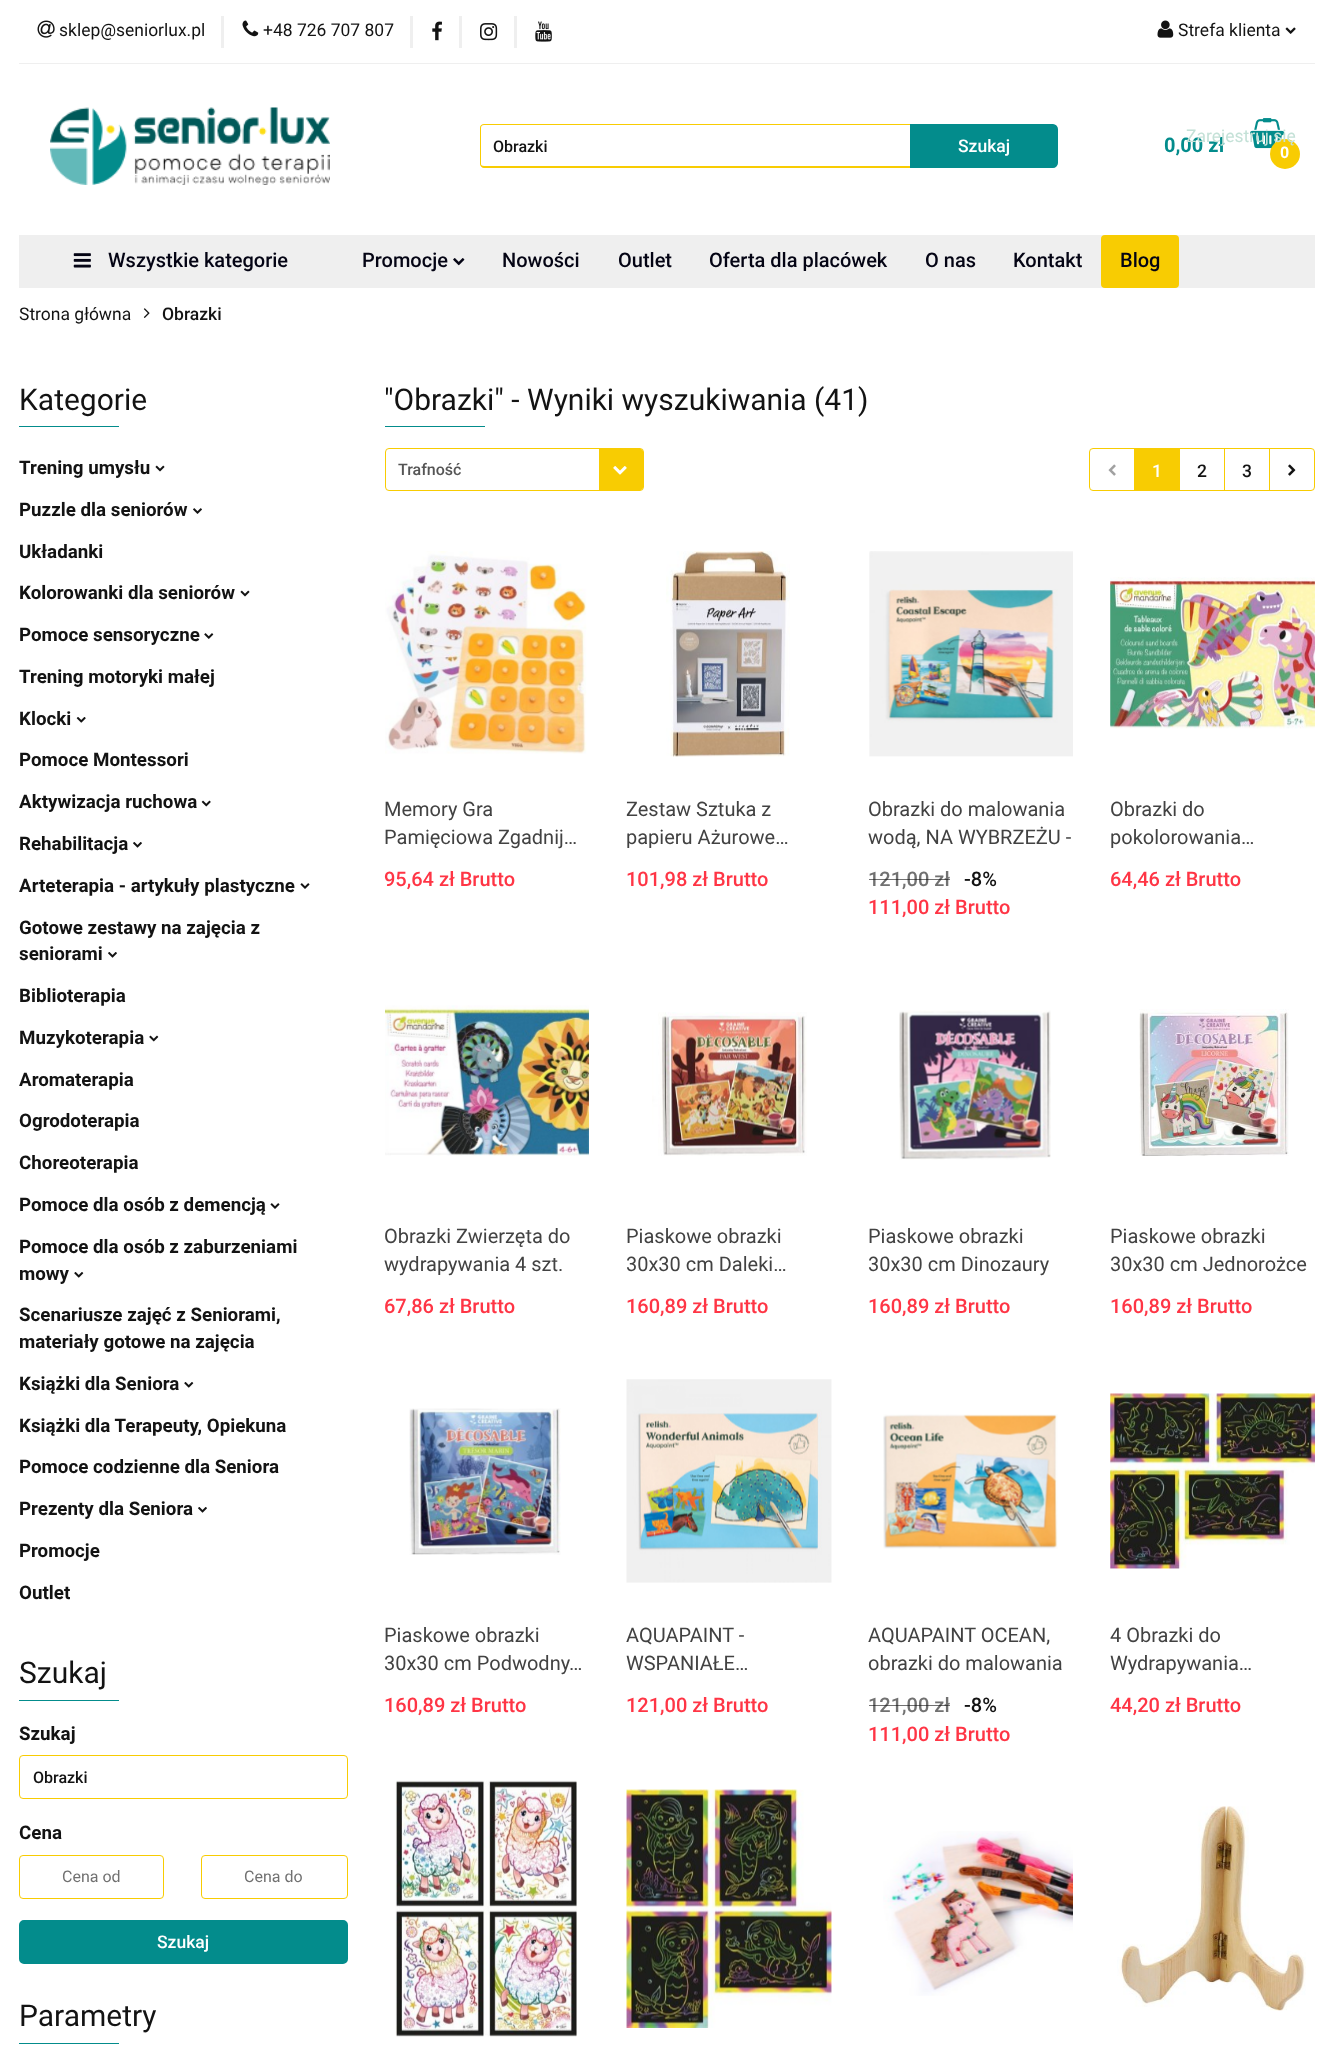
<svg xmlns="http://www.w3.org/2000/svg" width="1333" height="2049">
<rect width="100%" height="100%" fill="#fff"/>
<rect x="19" y="63" width="1296" height="1" fill="#efefef"/>
<image x="37" y="20" width="18" height="18" href="media/1.png"/>
<text x="59" y="36" style="font-family:Roboto;font-size:17.5px;fill:#131313">sklep@seniorlux.pl</text>
<rect x="221" y="16" width="3" height="32" fill="#efefef"/>
<image x="242" y="20" width="17" height="17" href="media/2.png"/>
<text x="263" y="36" style="font-family:Roboto;font-size:17.5px;fill:#131313">+48 726 707 807</text>
<rect x="410" y="16" width="3" height="32" fill="#efefef"/>
<image x="432" y="21" width="10" height="20" href="media/3.png"/>
<rect x="459" y="16" width="3" height="32" fill="#efefef"/>
<image x="480" y="23" width="18" height="18" href="media/4.png"/>
<rect x="514" y="16" width="3" height="32" fill="#efefef"/>
<image x="535" y="21" width="17" height="21" href="media/5.png"/>
<image x="1157" y="20" width="17" height="18" href="media/6.png"/>
<text x="1178" y="36" style="font-family:Roboto;font-size:17.5px;fill:#131313">Strefa klienta</text>
<image x="1285" y="27" width="11" height="7" href="media/7.png"/>
<text x="1164" y="152" style="font-family:Roboto;font-size:20px;font-weight:bold;fill:#038c8c">0,00 zł</text>
<image x="1250" y="118" width="35" height="31" href="media/9.png"/>
<circle cx="1285" cy="154" r="15" fill="#f8cc02"/>
<text x="1186" y="142" style="font-family:Roboto;font-size:17.5px;fill:#c4e1d7">Zarejestruj się</text>
<image x="50" y="107" width="280" height="78" href="media/8.png"/>
<path d="M484 124h426v44h-426c-2 0-4-2-4-4v-36c0-3 2-4 4-4zm0 1h426v41h-426c-2 0-3-1-3-2v-36c0-2 1-3 3-3z" fill="#f8cc02" fill-rule="evenodd"/>
<text x="493" y="152" style="font-family:Roboto;font-size:16px;font-weight:500;fill:#131313">Obrazki</text>
<path d="M912 126h141c1.5 0 3 1.5 3 3v34c0 1.5-1.5 3-3 3h-141z" fill="#038c8c" stroke="#038c8c" stroke-width="4"/>
<text x="958" y="152" style="font-family:Roboto;font-size:17.5px;font-weight:500;fill:#fff">Szukaj</text>
<text x="1280" y="158" style="font-family:Roboto;font-size:16px;font-weight:bold;fill:#fff">0</text>
<rect x="19" y="235" width="1296" height="53" fill="#efefef"/>
<image x="73" y="253" width="18" height="15" href="media/10.png"/>
<text x="108" y="267" style="font-family:Roboto;font-size:20px;font-weight:500;fill:#040414">Wszystkie kategorie</text>
<text x="362" y="267" style="font-family:Roboto;font-size:20px;font-weight:500;fill:#040414">Promocje</text>
<image x="453" y="258" width="12" height="8" href="media/11.png"/>
<text x="502" y="267" style="font-family:Roboto;font-size:20px;font-weight:500;fill:#040414">Nowości</text>
<text x="618" y="267" style="font-family:Roboto;font-size:20px;font-weight:500;fill:#040414">Outlet</text>
<text x="709" y="267" style="font-family:Roboto;font-size:20px;font-weight:500;fill:#040414">Oferta dla placówek</text>
<text x="925" y="267" style="font-family:Roboto;font-size:20px;font-weight:500;fill:#040414">O nas</text>
<text x="1013" y="267" style="font-family:Roboto;font-size:20px;font-weight:500;fill:#040414">Kontakt</text>
<rect x="1101" y="235" width="78" height="53" rx="4" fill="#f8cc02"/>
<text x="1120" y="267" style="font-family:Roboto;font-size:20px;font-weight:500;fill:#040414">Blog</text>
<text x="19" y="320" style="font-family:Roboto;font-size:17.5px;fill:#131313">Strona główna</text>
<image x="143" y="308" width="7" height="10" href="media/12.png"/>
<text x="162" y="320" style="font-family:Roboto;font-size:17.5px;font-weight:500;fill:#131313">Obrazki</text>
<text x="19" y="410" style="font-family:Roboto;font-size:30px;fill:#131313">Kategorie</text>
<rect x="19" y="426" width="100" height="1" fill="#038c8c"/>
<text x="19" y="474" style="font-family:Roboto;font-size:18.75px;font-weight:bold;fill:#131313">Trening umysłu</text>
<image x="155" y="465" width="10" height="7" href="media/13.png"/>
<text x="19" y="516" style="font-family:Roboto;font-size:18.75px;font-weight:bold;fill:#131313">Puzzle dla seniorów</text>
<image x="193" y="508" width="9" height="6" href="media/14.png"/>
<text x="19" y="558" style="font-family:Roboto;font-size:18.75px;font-weight:bold;fill:#131313">Układanki</text>
<text x="19" y="599" style="font-family:Roboto;font-size:18.75px;font-weight:bold;fill:#131313">Kolorowanki dla seniorów</text>
<image x="240" y="590" width="10" height="7" href="media/13.png"/>
<text x="19" y="641" style="font-family:Roboto;font-size:18.75px;font-weight:bold;fill:#131313">Pomoce sensoryczne</text>
<image x="204" y="633" width="10" height="6" href="media/15.png"/>
<text x="19" y="683" style="font-family:Roboto;font-size:18.75px;font-weight:bold;fill:#131313">Trening motoryki małej</text>
<text x="19" y="725" style="font-family:Roboto;font-size:18.75px;font-weight:bold;fill:#131313">Klocki</text>
<image x="76" y="717" width="10" height="6" href="media/16.png"/>
<text x="19" y="766" style="font-family:Roboto;font-size:18.75px;font-weight:bold;fill:#131313">Pomoce Montessori</text>
<text x="19" y="808" style="font-family:Roboto;font-size:18.75px;font-weight:bold;fill:#131313">Aktywizacja ruchowa</text>
<image x="201" y="800" width="10" height="7" href="media/17.png"/>
<text x="19" y="850" style="font-family:Roboto;font-size:18.75px;font-weight:bold;fill:#131313">Rehabilitacja</text>
<image x="133" y="842" width="9" height="6" href="media/18.png"/>
<text x="19" y="892" style="font-family:Roboto;font-size:18.75px;font-weight:bold;fill:#131313">Arteterapia - artykuły plastyczne</text>
<image x="300" y="883" width="10" height="6" href="media/19.png"/>
<text x="19" y="934" style="font-family:Roboto;font-size:18.75px;font-weight:bold;fill:#131313">Gotowe zestawy na zajęcia z</text>
<text x="19" y="960" style="font-family:Roboto;font-size:18.75px;font-weight:bold;fill:#131313">seniorami</text>
<image x="108" y="952" width="9" height="6" href="media/18.png"/>
<text x="19" y="1002" style="font-family:Roboto;font-size:18.75px;font-weight:bold;fill:#131313">Biblioterapia</text>
<text x="19" y="1044" style="font-family:Roboto;font-size:18.75px;font-weight:bold;fill:#131313">Muzykoterapia</text>
<image x="149" y="1035" width="10" height="7" href="media/20.png"/>
<text x="19" y="1086" style="font-family:Roboto;font-size:18.75px;font-weight:bold;fill:#131313">Aromaterapia</text>
<text x="19" y="1127" style="font-family:Roboto;font-size:18.75px;font-weight:bold;fill:#131313">Ogrodoterapia</text>
<text x="19" y="1169" style="font-family:Roboto;font-size:18.75px;font-weight:bold;fill:#131313">Choreoterapia</text>
<text x="19" y="1211" style="font-family:Roboto;font-size:18.75px;font-weight:bold;fill:#131313">Pomoce dla osób z demencją</text>
<image x="270" y="1203" width="10" height="6" href="media/19.png"/>
<text x="19" y="1253" style="font-family:Roboto;font-size:18.75px;font-weight:bold;fill:#131313">Pomoce dla osób z zaburzeniami</text>
<text x="19" y="1280" style="font-family:Roboto;font-size:18.75px;font-weight:bold;fill:#131313">mowy</text>
<image x="74" y="1272" width="10" height="6" href="media/21.png"/>
<text x="19" y="1321" style="font-family:Roboto;font-size:18.75px;font-weight:bold;fill:#131313">Scenariusze zajęć z Seniorami,</text>
<text x="19" y="1348" style="font-family:Roboto;font-size:18.75px;font-weight:bold;fill:#131313">materiały gotowe na zajęcia</text>
<text x="19" y="1390" style="font-family:Roboto;font-size:18.75px;font-weight:bold;fill:#131313">Książki dla Seniora</text>
<image x="184" y="1382" width="10" height="6" href="media/21.png"/>
<text x="19" y="1432" style="font-family:Roboto;font-size:18.75px;font-weight:bold;fill:#131313">Książki dla Terapeuty, Opiekuna</text>
<text x="19" y="1473" style="font-family:Roboto;font-size:18.75px;font-weight:bold;fill:#131313">Pomoce codzienne dla Seniora</text>
<text x="19" y="1515" style="font-family:Roboto;font-size:18.75px;font-weight:bold;fill:#131313">Prezenty dla Seniora</text>
<image x="198" y="1507" width="9" height="6" href="media/18.png"/>
<text x="19" y="1557" style="font-family:Roboto;font-size:18.75px;font-weight:bold;fill:#131313">Promocje</text>
<text x="19" y="1599" style="font-family:Roboto;font-size:18.75px;font-weight:bold;fill:#131313">Outlet</text>
<text x="19" y="1683" style="font-family:Roboto;font-size:30px;fill:#131313">Szukaj</text>
<rect x="19" y="1700" width="100" height="1" fill="#038c8c"/>
<text x="19" y="1740" style="font-family:Roboto;font-size:18.75px;font-weight:bold;fill:#131313">Szukaj</text>
<rect x="19.5" y="1755.5" width="328" height="43" rx="3.5" fill="none" stroke="#f8cc02"/>
<text x="33" y="1783" style="font-family:Roboto;font-size:16px;font-weight:500;fill:#131313">Obrazki</text>
<text x="19" y="1839" style="font-family:Roboto;font-size:18.75px;font-weight:bold;fill:#131313">Cena</text>
<rect x="19.5" y="1855.5" width="144" height="43" rx="3.5" fill="none" stroke="#f8cc02"/>
<text x="62" y="1882" style="font-family:Roboto;font-size:16px;fill:#717171">Cena od</text>
<rect x="201.5" y="1855.5" width="146" height="43" rx="3.5" fill="none" stroke="#f8cc02"/>
<text x="244" y="1882" style="font-family:Roboto;font-size:16px;fill:#717171">Cena do</text>
<rect x="21" y="1922" width="325" height="40" rx="3" fill="#038c8c" stroke="#038c8c" stroke-width="4"/>
<text x="157" y="1948" style="font-family:Roboto;font-size:17.5px;font-weight:500;fill:#fff">Szukaj</text>
<text x="19" y="2026" style="font-family:Roboto;font-size:30px;fill:#131313">Parametry</text>
<rect x="19" y="2043" width="100" height="1" fill="#038c8c"/>
<text x="384" y="410" style="font-family:Roboto;font-size:30px;fill:#131313">"Obrazki" - Wyniki wyszukiwania (41)</text>
<rect x="385" y="426" width="100" height="1" fill="#038c8c"/>
<rect x="385.5" y="448.5" width="258" height="42" rx="3.5" fill="none" stroke="#f8cc02"/>
<text x="398" y="475" style="font-family:Roboto;font-size:16px;font-weight:500;fill:#555">Trafność</text>
<path d="M599 449h41.5c1.5 0 2.5 1 2.5 2.5v36c0 1.5-1 2.5-2.5 2.5h-41.5z" fill="#f8cc02"/>
<image x="613" y="466" width="14" height="9" href="media/22.png"/>
<rect x="1089.5" y="448.5" width="225" height="42" rx="3.5" fill="none" stroke="#f8cc02"/>
<rect x="1134" y="449" width="1" height="41" fill="#f8cc02"/>
<image x="1108" y="464" width="8" height="12" href="media/23.png"/>
<rect x="1135" y="449" width="45" height="41" fill="#f8cc02"/>
<text x="1152" y="477" style="font-family:Roboto;font-size:17.5px;font-weight:500;fill:#fff">1</text>
<rect x="1224" y="449" width="1" height="41" fill="#f8cc02"/>
<text x="1197" y="477" style="font-family:Roboto;font-size:17.5px;font-weight:500;fill:#131313">2</text>
<rect x="1269" y="449" width="1" height="41" fill="#f8cc02"/>
<text x="1242" y="477" style="font-family:Roboto;font-size:17.5px;font-weight:500;fill:#131313">3</text>
<image x="1288" y="464" width="8" height="12" href="media/24.png"/>
<image x="385" y="551" width="202" height="203" href="media/25.png"/>
<text x="384" y="816" style="font-family:Roboto;font-size:20px;fill:#424242">Memory Gra</text>
<text x="384" y="844" style="font-family:Roboto;font-size:20px;fill:#424242">Pamięciowa Zgadnij…</text>
<text x="384" y="886" style="font-family:Roboto;font-size:20px;font-weight:500;fill:#ff3545">95,64 zł Brutto</text>
<image x="666" y="551" width="124" height="206" href="media/26.png"/>
<text x="626" y="816" style="font-family:Roboto;font-size:20px;fill:#424242">Zestaw Sztuka z</text>
<text x="626" y="844" style="font-family:Roboto;font-size:20px;fill:#424242">papieru Ażurowe…</text>
<text x="626" y="886" style="font-family:Roboto;font-size:20px;font-weight:500;fill:#ff3545">101,98 zł Brutto</text>
<image x="869" y="551" width="204" height="206" href="media/27.png"/>
<text x="868" y="816" style="font-family:Roboto;font-size:20px;fill:#424242">Obrazki do malowania</text>
<text x="868" y="844" style="font-family:Roboto;font-size:20px;fill:#424242">wodą, NA WYBRZEŻU -</text>
<text x="868" y="886" style="font-family:Roboto;font-size:20px;font-weight:500;fill:#717171">121,00 zł</text>
<rect x="869" y="879" width="81" height="1" fill="#13131399"/>
<text x="964" y="886" style="font-family:Roboto;font-size:20px;font-weight:500;fill:#131313">-8%</text>
<text x="868" y="914" style="font-family:Roboto;font-size:20px;font-weight:500;fill:#ff3545">111,00 zł Brutto</text>
<image x="1110" y="577" width="205" height="152" href="media/28.png"/>
<text x="1110" y="816" style="font-family:Roboto;font-size:20px;fill:#424242">Obrazki do</text>
<text x="1110" y="844" style="font-family:Roboto;font-size:20px;fill:#424242">pokolorowania…</text>
<text x="1110" y="886" style="font-family:Roboto;font-size:20px;font-weight:500;fill:#ff3545">64,46 zł Brutto</text>
<image x="385" y="1005" width="204" height="151" href="media/29.png"/>
<text x="384" y="1243" style="font-family:Roboto;font-size:20px;fill:#424242">Obrazki Zwierzęta do</text>
<text x="384" y="1271" style="font-family:Roboto;font-size:20px;fill:#424242">wydrapywania 4 szt.</text>
<text x="384" y="1313" style="font-family:Roboto;font-size:20px;font-weight:500;fill:#ff3545">67,86 zł Brutto</text>
<image x="652" y="1012" width="155" height="144" href="media/30.png"/>
<text x="626" y="1243" style="font-family:Roboto;font-size:20px;fill:#424242">Piaskowe obrazki</text>
<text x="626" y="1271" style="font-family:Roboto;font-size:20px;fill:#424242">30x30 cm Daleki…</text>
<text x="626" y="1313" style="font-family:Roboto;font-size:20px;font-weight:500;fill:#ff3545">160,89 zł Brutto</text>
<image x="899" y="1010" width="152" height="150" href="media/31.png"/>
<text x="868" y="1243" style="font-family:Roboto;font-size:20px;fill:#424242">Piaskowe obrazki</text>
<text x="868" y="1271" style="font-family:Roboto;font-size:20px;fill:#424242">30x30 cm Dinozaury</text>
<text x="868" y="1313" style="font-family:Roboto;font-size:20px;font-weight:500;fill:#ff3545">160,89 zł Brutto</text>
<image x="1139" y="1009" width="150" height="147" href="media/32.png"/>
<text x="1110" y="1243" style="font-family:Roboto;font-size:20px;fill:#424242">Piaskowe obrazki</text>
<text x="1110" y="1271" style="font-family:Roboto;font-size:20px;fill:#424242">30x30 cm Jednorożce</text>
<text x="1110" y="1313" style="font-family:Roboto;font-size:20px;font-weight:500;fill:#ff3545">160,89 zł Brutto</text>
<image x="409" y="1408" width="152" height="147" href="media/33.png"/>
<text x="384" y="1642" style="font-family:Roboto;font-size:20px;fill:#424242">Piaskowe obrazki</text>
<text x="384" y="1670" style="font-family:Roboto;font-size:20px;fill:#424242">30x30 cm Podwodny…</text>
<text x="384" y="1712" style="font-family:Roboto;font-size:20px;font-weight:500;fill:#ff3545">160,89 zł Brutto</text>
<image x="626" y="1379" width="206" height="204" href="media/34.png"/>
<text x="626" y="1642" style="font-family:Roboto;font-size:20px;fill:#424242">AQUAPAINT -</text>
<text x="626" y="1670" style="font-family:Roboto;font-size:20px;fill:#424242">WSPANIAŁE…</text>
<text x="626" y="1712" style="font-family:Roboto;font-size:20px;font-weight:500;fill:#ff3545">121,00 zł Brutto</text>
<image x="883" y="1414" width="175" height="135" href="media/35.png"/>
<text x="868" y="1642" style="font-family:Roboto;font-size:20px;fill:#424242">AQUAPAINT OCEAN,</text>
<text x="868" y="1670" style="font-family:Roboto;font-size:20px;fill:#424242">obrazki do malowania</text>
<text x="868" y="1712" style="font-family:Roboto;font-size:20px;font-weight:500;fill:#717171">121,00 zł</text>
<rect x="869" y="1705" width="81" height="1" fill="#13131399"/>
<text x="964" y="1712" style="font-family:Roboto;font-size:20px;font-weight:500;fill:#131313">-8%</text>
<text x="868" y="1741" style="font-family:Roboto;font-size:20px;font-weight:500;fill:#ff3545">111,00 zł Brutto</text>
<image x="1110" y="1393" width="205" height="176" href="media/36.png"/>
<text x="1110" y="1642" style="font-family:Roboto;font-size:20px;fill:#424242">4 Obrazki do</text>
<text x="1110" y="1670" style="font-family:Roboto;font-size:20px;fill:#424242">Wydrapywania…</text>
<text x="1110" y="1712" style="font-family:Roboto;font-size:20px;font-weight:500;fill:#ff3545">44,20 zł Brutto</text>
<image x="395" y="1780" width="182" height="257" href="media/37.png"/>
<image x="626" y="1789" width="206" height="239" href="media/38.png"/>
<image x="883" y="1831" width="190" height="165" href="media/39.png"/>
<image x="1117" y="1806" width="189" height="205" href="media/40.png"/>
</svg>
